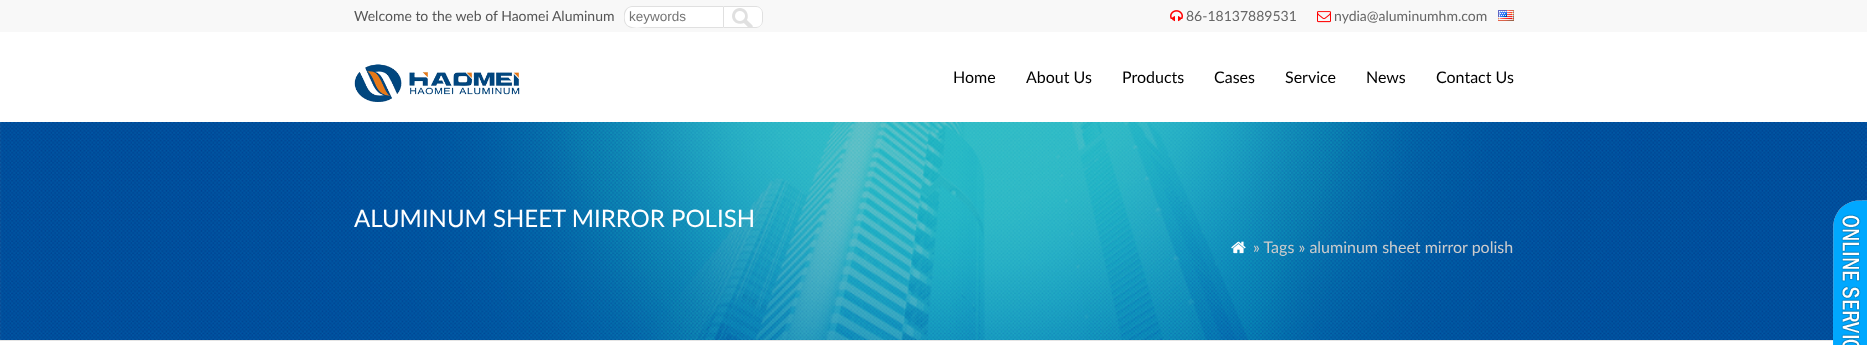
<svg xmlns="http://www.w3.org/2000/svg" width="1867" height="345">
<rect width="100%" height="100%" fill="#fff"/>
<rect width="1867" height="32" fill="#f8f8f8"/>
<text x="354" y="21" style="font-family:Lato;font-size:14px;fill:#555">Welcome to the web of Haomei Aluminum</text>
<path d="M632 6h91v22h-91c-4.5 0-8-3.5-8-8v-6c0-4.5 3.5-8 8-8z" fill="#fff"/>
<path d="M632 6h91v22h-91c-4 0-8-4-8-8v-6c0-4 4-8 8-8zm0 1h91v20h-76c-6 0-12 2-18-1c-6-2-6-19 3-19z" fill="#e0e0e0" fill-rule="evenodd"/>
<text x="629" y="21" style="font-family:Liberation Sans;font-size:13.5px;fill:#757575">keywords</text>
<path d="M723 6h33c4 0 7 3 7 7v8c0 4-3 7-7 7h-33z" fill="#fff"/>
<image x="732" y="8" width="21" height="19" href="media/1.png"/>
<path d="M723.5 6.5h32.5c3.5 0 6.5 3 6.5 6.5v8c0 3.5-3 6.5-6.5 6.5h-32.5z" fill="none" stroke="#e0e0e0"/>
<image x="1170" y="10" width="13" height="12" href="media/2.png"/>
<text x="1186" y="21" style="font-family:Lato;font-size:14px;fill:#666">86-18137889531</text>
<image x="1317" y="11" width="14" height="12" href="media/3.png"/>
<text x="1334" y="21" style="font-family:Lato;font-size:14px;fill:#666">nydia@aluminumhm.com</text>
<image x="1498" y="10" width="16" height="11" href="media/4.png"/>
<image x="354" y="64" width="166" height="38" href="media/5.png"/>
<text x="953" y="83" style="font-family:Lato;font-size:16px;fill:#000">Home</text>
<text x="1026" y="83" style="font-family:Lato;font-size:16px;fill:#000">About Us</text>
<text x="1122" y="83" style="font-family:Lato;font-size:16px;fill:#000">Products</text>
<text x="1214" y="83" style="font-family:Lato;font-size:16px;fill:#000">Cases</text>
<text x="1285" y="83" style="font-family:Lato;font-size:16px;fill:#000">Service</text>
<text x="1366" y="83" style="font-family:Lato;font-size:16px;fill:#000">News</text>
<text x="1436" y="83" style="font-family:Lato;font-size:16px;fill:#000">Contact Us</text>
<image x="0" y="122" width="1867" height="218" href="media/6.png"/>
<rect y="340" width="1834" height="1" fill="#e5e5e5"/>
<text x="354" y="227" style="font-family:Lato;font-size:24px;fill:#fff">ALUMINUM SHEET MIRROR POLISH</text>
<image x="1231" y="241" width="15" height="13" href="media/7.png"/>
<text x="1253" y="253" style="font-family:Lato;font-size:16px;fill:#ccc">» Tags » aluminum sheet mirror polish</text>
<image x="1833" y="200" width="34" height="145" href="media/8.png"/>
</svg>
